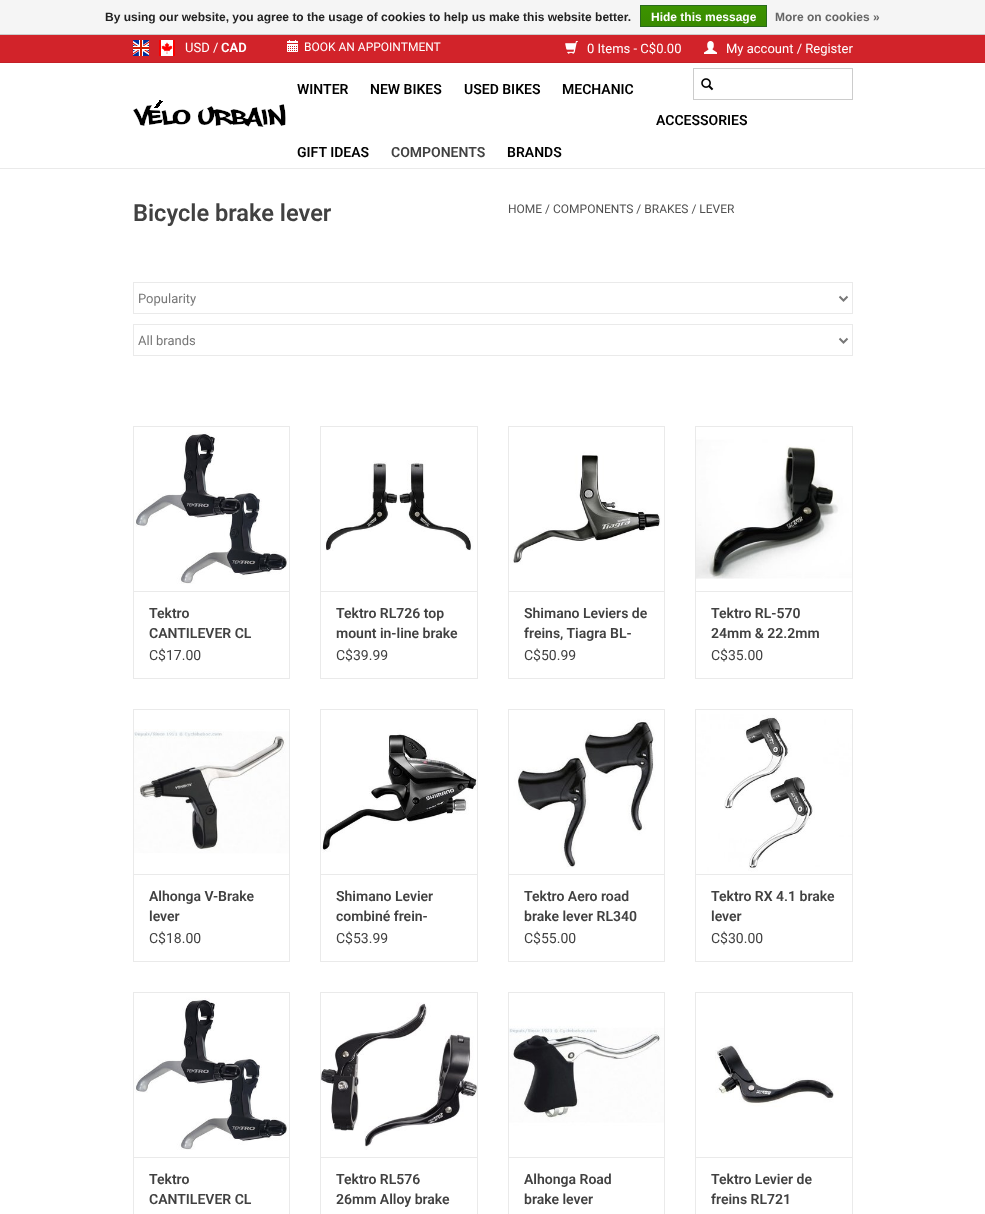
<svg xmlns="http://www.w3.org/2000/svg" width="985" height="1214">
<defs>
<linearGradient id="g1" gradientUnits="userSpaceOnUse" x1="704" y1="6" x2="704" y2="26"><stop offset="0" stop-color="#3c9300"/><stop offset="1" stop-color="#398a00"/></linearGradient>
</defs>
<rect width="100%" height="100%" fill="#fff"/>
<rect width="985" height="34" fill="#f5f5f5"/>
<rect y="34" width="985" height="1" fill="#ccc"/>
<text x="105" y="21" style="font-family:Liberation Sans;font-size:12px;font-weight:bold;fill:#222">By using our website, you agree to the usage of cookies to help us make this website better.</text>
<rect x="641" y="6" width="125" height="20" fill="url(#g1)"/>
<rect x="640.5" y="5.5" width="126" height="21" fill="none" stroke="#29691d"/>
<text x="651" y="21" style="font-family:Liberation Sans;font-size:12px;font-weight:bold;fill:#fff">Hide this message</text>
<text x="775" y="21" style="font-family:Liberation Sans;font-size:12px;font-weight:bold;fill:#666">More on cookies »</text>
<rect y="168" width="985" height="1" fill="#eaeaea"/>
<rect y="35" width="985" height="27" fill="#d2232a"/>
<rect y="62" width="985" height="1" fill="#c32027"/>
<image x="133" y="40" width="16" height="16" href="media/1.png"/>
<rect x="161" y="40" width="12" height="16" fill="#fff"/>
<image x="159" y="40" width="16" height="16" href="media/2.png"/>
<text x="185" y="52" style="font-family:Roboto;font-size:13px;fill:#fff">USD /</text>
<text x="221" y="52" style="font-family:Roboto;font-size:13px;font-weight:600;fill:#fff">CAD</text>
<image x="287" y="40" width="11" height="12" href="media/3.png"/>
<text x="304" y="51" style="font-family:Roboto;font-size:12px;fill:#fff">BOOK AN APPOINTMENT</text>
<image x="565" y="41" width="13" height="13" href="media/4.png"/>
<text x="587" y="53" style="font-family:Roboto;font-size:13px;fill:#fff">0 Items - C$0.00</text>
<image x="704" y="41" width="13" height="13" href="media/5.png"/>
<text x="726" y="53" style="font-family:Roboto;font-size:13px;fill:#fff">My account / Register</text>
<image x="133" y="100" width="153" height="27" href="media/6.png"/>
<text x="297" y="94" style="font-family:Roboto;font-size:14px;font-weight:600;fill:#000">WINTER</text>
<text x="370" y="94" style="font-family:Roboto;font-size:14px;font-weight:600;fill:#000">NEW BIKES</text>
<text x="464" y="94" style="font-family:Roboto;font-size:14px;font-weight:600;fill:#000">USED BIKES</text>
<text x="562" y="94" style="font-family:Roboto;font-size:14px;font-weight:600;fill:#000">MECHANIC</text>
<text x="656" y="125" style="font-family:Roboto;font-size:14px;font-weight:600;fill:#000">ACCESSORIES</text>
<text x="297" y="157" style="font-family:Roboto;font-size:14px;font-weight:600;fill:#000">GIFT IDEAS</text>
<text x="391" y="157" style="font-family:Roboto;font-size:14px;font-weight:600;fill:#414141">COMPONENTS</text>
<text x="507" y="157" style="font-family:Roboto;font-size:14px;font-weight:600;fill:#000">BRANDS</text>
<rect x="693.5" y="68.5" width="159" height="31" fill="none" stroke="#ccc"/>
<image x="701" y="78" width="13" height="13" href="media/7.png"/>
<text x="133" y="221" style="font-family:Roboto;font-size:23.6px;font-weight:600;fill:#414141">Bicycle brake lever</text>
<text x="508" y="213" style="font-family:Roboto;font-size:12px;fill:#505050">HOME / COMPONENTS / BRAKES / LEVER</text>
<rect x="133.5" y="282.5" width="719" height="31" fill="none" stroke="#eaeaea"/>
<path d="M839.5 296.5l4 4l4-4" fill="none" stroke="#777" stroke-width="2"/>
<text x="138" y="303" style="font-family:Roboto;font-size:13px;fill:#777">Popularity</text>
<rect x="133.5" y="324.5" width="719" height="31" fill="none" stroke="#eaeaea"/>
<path d="M839.5 338.5l4 4l4-4" fill="none" stroke="#777" stroke-width="2"/>
<text x="138" y="345" style="font-family:Roboto;font-size:13px;fill:#777">All brands</text>
<rect x="133" y="426" width="157" height="1" fill="#eaeaea"/>
<rect x="289" y="426" width="1" height="165" fill="#eaeaea"/>
<rect x="133" y="426" width="1" height="165" fill="#eaeaea"/>
<image x="134" y="427" width="155" height="164" href="media/8.png"/>
<rect x="133.5" y="591.5" width="156" height="87" fill="none" stroke="#eaeaea"/>
<text x="149" y="618" style="font-family:Roboto;font-size:14px;font-weight:600;fill:#414141">Tektro</text>
<text x="149" y="638" style="font-family:Roboto;font-size:14px;font-weight:600;fill:#414141">CANTILEVER CL</text>
<text x="149" y="660" style="font-family:Roboto;font-size:14px;fill:#414141">C$17.00</text>
<rect x="320" y="426" width="158" height="1" fill="#eaeaea"/>
<rect x="477" y="426" width="1" height="165" fill="#eaeaea"/>
<rect x="320" y="426" width="1" height="165" fill="#eaeaea"/>
<image x="321" y="427" width="156" height="164" href="media/9.png"/>
<rect x="320.5" y="591.5" width="157" height="87" fill="none" stroke="#eaeaea"/>
<text x="336" y="618" style="font-family:Roboto;font-size:14px;font-weight:600;fill:#414141">Tektro RL726 top</text>
<text x="336" y="638" style="font-family:Roboto;font-size:14px;font-weight:600;fill:#414141">mount in-line brake</text>
<text x="336" y="660" style="font-family:Roboto;font-size:14px;fill:#414141">C$39.99</text>
<rect x="508" y="426" width="157" height="1" fill="#eaeaea"/>
<rect x="664" y="426" width="1" height="165" fill="#eaeaea"/>
<rect x="508" y="426" width="1" height="165" fill="#eaeaea"/>
<image x="509" y="427" width="155" height="164" href="media/10.png"/>
<rect x="508.5" y="591.5" width="156" height="87" fill="none" stroke="#eaeaea"/>
<text x="524" y="618" style="font-family:Roboto;font-size:14px;font-weight:600;fill:#414141">Shimano Leviers de</text>
<text x="524" y="638" style="font-family:Roboto;font-size:14px;font-weight:600;fill:#414141">freins, Tiagra BL-</text>
<text x="524" y="660" style="font-family:Roboto;font-size:14px;fill:#414141">C$50.99</text>
<rect x="695" y="426" width="158" height="1" fill="#eaeaea"/>
<rect x="852" y="426" width="1" height="165" fill="#eaeaea"/>
<rect x="695" y="426" width="1" height="165" fill="#eaeaea"/>
<image x="696" y="427" width="156" height="164" href="media/11.png"/>
<rect x="695.5" y="591.5" width="157" height="87" fill="none" stroke="#eaeaea"/>
<text x="711" y="618" style="font-family:Roboto;font-size:14px;font-weight:600;fill:#414141">Tektro RL-570</text>
<text x="711" y="638" style="font-family:Roboto;font-size:14px;font-weight:600;fill:#414141">24mm &amp; 22.2mm</text>
<text x="711" y="660" style="font-family:Roboto;font-size:14px;fill:#414141">C$35.00</text>
<rect x="133" y="709" width="157" height="1" fill="#eaeaea"/>
<rect x="289" y="709" width="1" height="165" fill="#eaeaea"/>
<rect x="133" y="709" width="1" height="165" fill="#eaeaea"/>
<image x="134" y="710" width="155" height="164" href="media/12.png"/>
<rect x="133.5" y="874.5" width="156" height="87" fill="none" stroke="#eaeaea"/>
<text x="149" y="901" style="font-family:Roboto;font-size:14px;font-weight:600;fill:#414141">Alhonga V-Brake</text>
<text x="149" y="921" style="font-family:Roboto;font-size:14px;font-weight:600;fill:#414141">lever</text>
<text x="149" y="943" style="font-family:Roboto;font-size:14px;fill:#414141">C$18.00</text>
<rect x="320" y="709" width="158" height="1" fill="#eaeaea"/>
<rect x="477" y="709" width="1" height="165" fill="#eaeaea"/>
<rect x="320" y="709" width="1" height="165" fill="#eaeaea"/>
<image x="321" y="710" width="156" height="164" href="media/13.png"/>
<rect x="320.5" y="874.5" width="157" height="87" fill="none" stroke="#eaeaea"/>
<text x="336" y="901" style="font-family:Roboto;font-size:14px;font-weight:600;fill:#414141">Shimano Levier</text>
<text x="336" y="921" style="font-family:Roboto;font-size:14px;font-weight:600;fill:#414141">combiné frein-</text>
<text x="336" y="943" style="font-family:Roboto;font-size:14px;fill:#414141">C$53.99</text>
<rect x="508" y="709" width="157" height="1" fill="#eaeaea"/>
<rect x="664" y="709" width="1" height="165" fill="#eaeaea"/>
<rect x="508" y="709" width="1" height="165" fill="#eaeaea"/>
<image x="509" y="710" width="155" height="164" href="media/14.png"/>
<rect x="508.5" y="874.5" width="156" height="87" fill="none" stroke="#eaeaea"/>
<text x="524" y="901" style="font-family:Roboto;font-size:14px;font-weight:600;fill:#414141">Tektro Aero road</text>
<text x="524" y="921" style="font-family:Roboto;font-size:14px;font-weight:600;fill:#414141">brake lever RL340</text>
<text x="524" y="943" style="font-family:Roboto;font-size:14px;fill:#414141">C$55.00</text>
<rect x="695" y="709" width="158" height="1" fill="#eaeaea"/>
<rect x="852" y="709" width="1" height="165" fill="#eaeaea"/>
<rect x="695" y="709" width="1" height="165" fill="#eaeaea"/>
<image x="696" y="710" width="156" height="164" href="media/15.png"/>
<rect x="695.5" y="874.5" width="157" height="87" fill="none" stroke="#eaeaea"/>
<text x="711" y="901" style="font-family:Roboto;font-size:14px;font-weight:600;fill:#414141">Tektro RX 4.1 brake</text>
<text x="711" y="921" style="font-family:Roboto;font-size:14px;font-weight:600;fill:#414141">lever</text>
<text x="711" y="943" style="font-family:Roboto;font-size:14px;fill:#414141">C$30.00</text>
<rect x="133" y="992" width="157" height="1" fill="#eaeaea"/>
<rect x="289" y="992" width="1" height="165" fill="#eaeaea"/>
<rect x="133" y="992" width="1" height="165" fill="#eaeaea"/>
<image x="134" y="993" width="155" height="164" href="media/8.png"/>
<rect x="133.5" y="1157.5" width="156" height="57" fill="none" stroke="#eaeaea"/>
<text x="149" y="1184" style="font-family:Roboto;font-size:14px;font-weight:600;fill:#414141">Tektro</text>
<text x="149" y="1204" style="font-family:Roboto;font-size:14px;font-weight:600;fill:#414141">CANTILEVER CL</text>
<rect x="320" y="992" width="158" height="1" fill="#eaeaea"/>
<rect x="477" y="992" width="1" height="165" fill="#eaeaea"/>
<rect x="320" y="992" width="1" height="165" fill="#eaeaea"/>
<image x="321" y="993" width="156" height="164" href="media/16.png"/>
<rect x="320.5" y="1157.5" width="157" height="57" fill="none" stroke="#eaeaea"/>
<text x="336" y="1184" style="font-family:Roboto;font-size:14px;font-weight:600;fill:#414141">Tektro RL576</text>
<text x="336" y="1204" style="font-family:Roboto;font-size:14px;font-weight:600;fill:#414141">26mm Alloy brake</text>
<rect x="508" y="992" width="157" height="1" fill="#eaeaea"/>
<rect x="664" y="992" width="1" height="165" fill="#eaeaea"/>
<rect x="508" y="992" width="1" height="165" fill="#eaeaea"/>
<image x="509" y="993" width="155" height="164" href="media/17.png"/>
<rect x="508.5" y="1157.5" width="156" height="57" fill="none" stroke="#eaeaea"/>
<text x="524" y="1184" style="font-family:Roboto;font-size:14px;font-weight:600;fill:#414141">Alhonga Road</text>
<text x="524" y="1204" style="font-family:Roboto;font-size:14px;font-weight:600;fill:#414141">brake lever</text>
<rect x="695" y="992" width="158" height="1" fill="#eaeaea"/>
<rect x="852" y="992" width="1" height="165" fill="#eaeaea"/>
<rect x="695" y="992" width="1" height="165" fill="#eaeaea"/>
<image x="696" y="993" width="156" height="164" href="media/18.png"/>
<rect x="695.5" y="1157.5" width="157" height="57" fill="none" stroke="#eaeaea"/>
<text x="711" y="1184" style="font-family:Roboto;font-size:14px;font-weight:600;fill:#414141">Tektro Levier de</text>
<text x="711" y="1204" style="font-family:Roboto;font-size:14px;font-weight:600;fill:#414141">freins RL721</text>
</svg>
